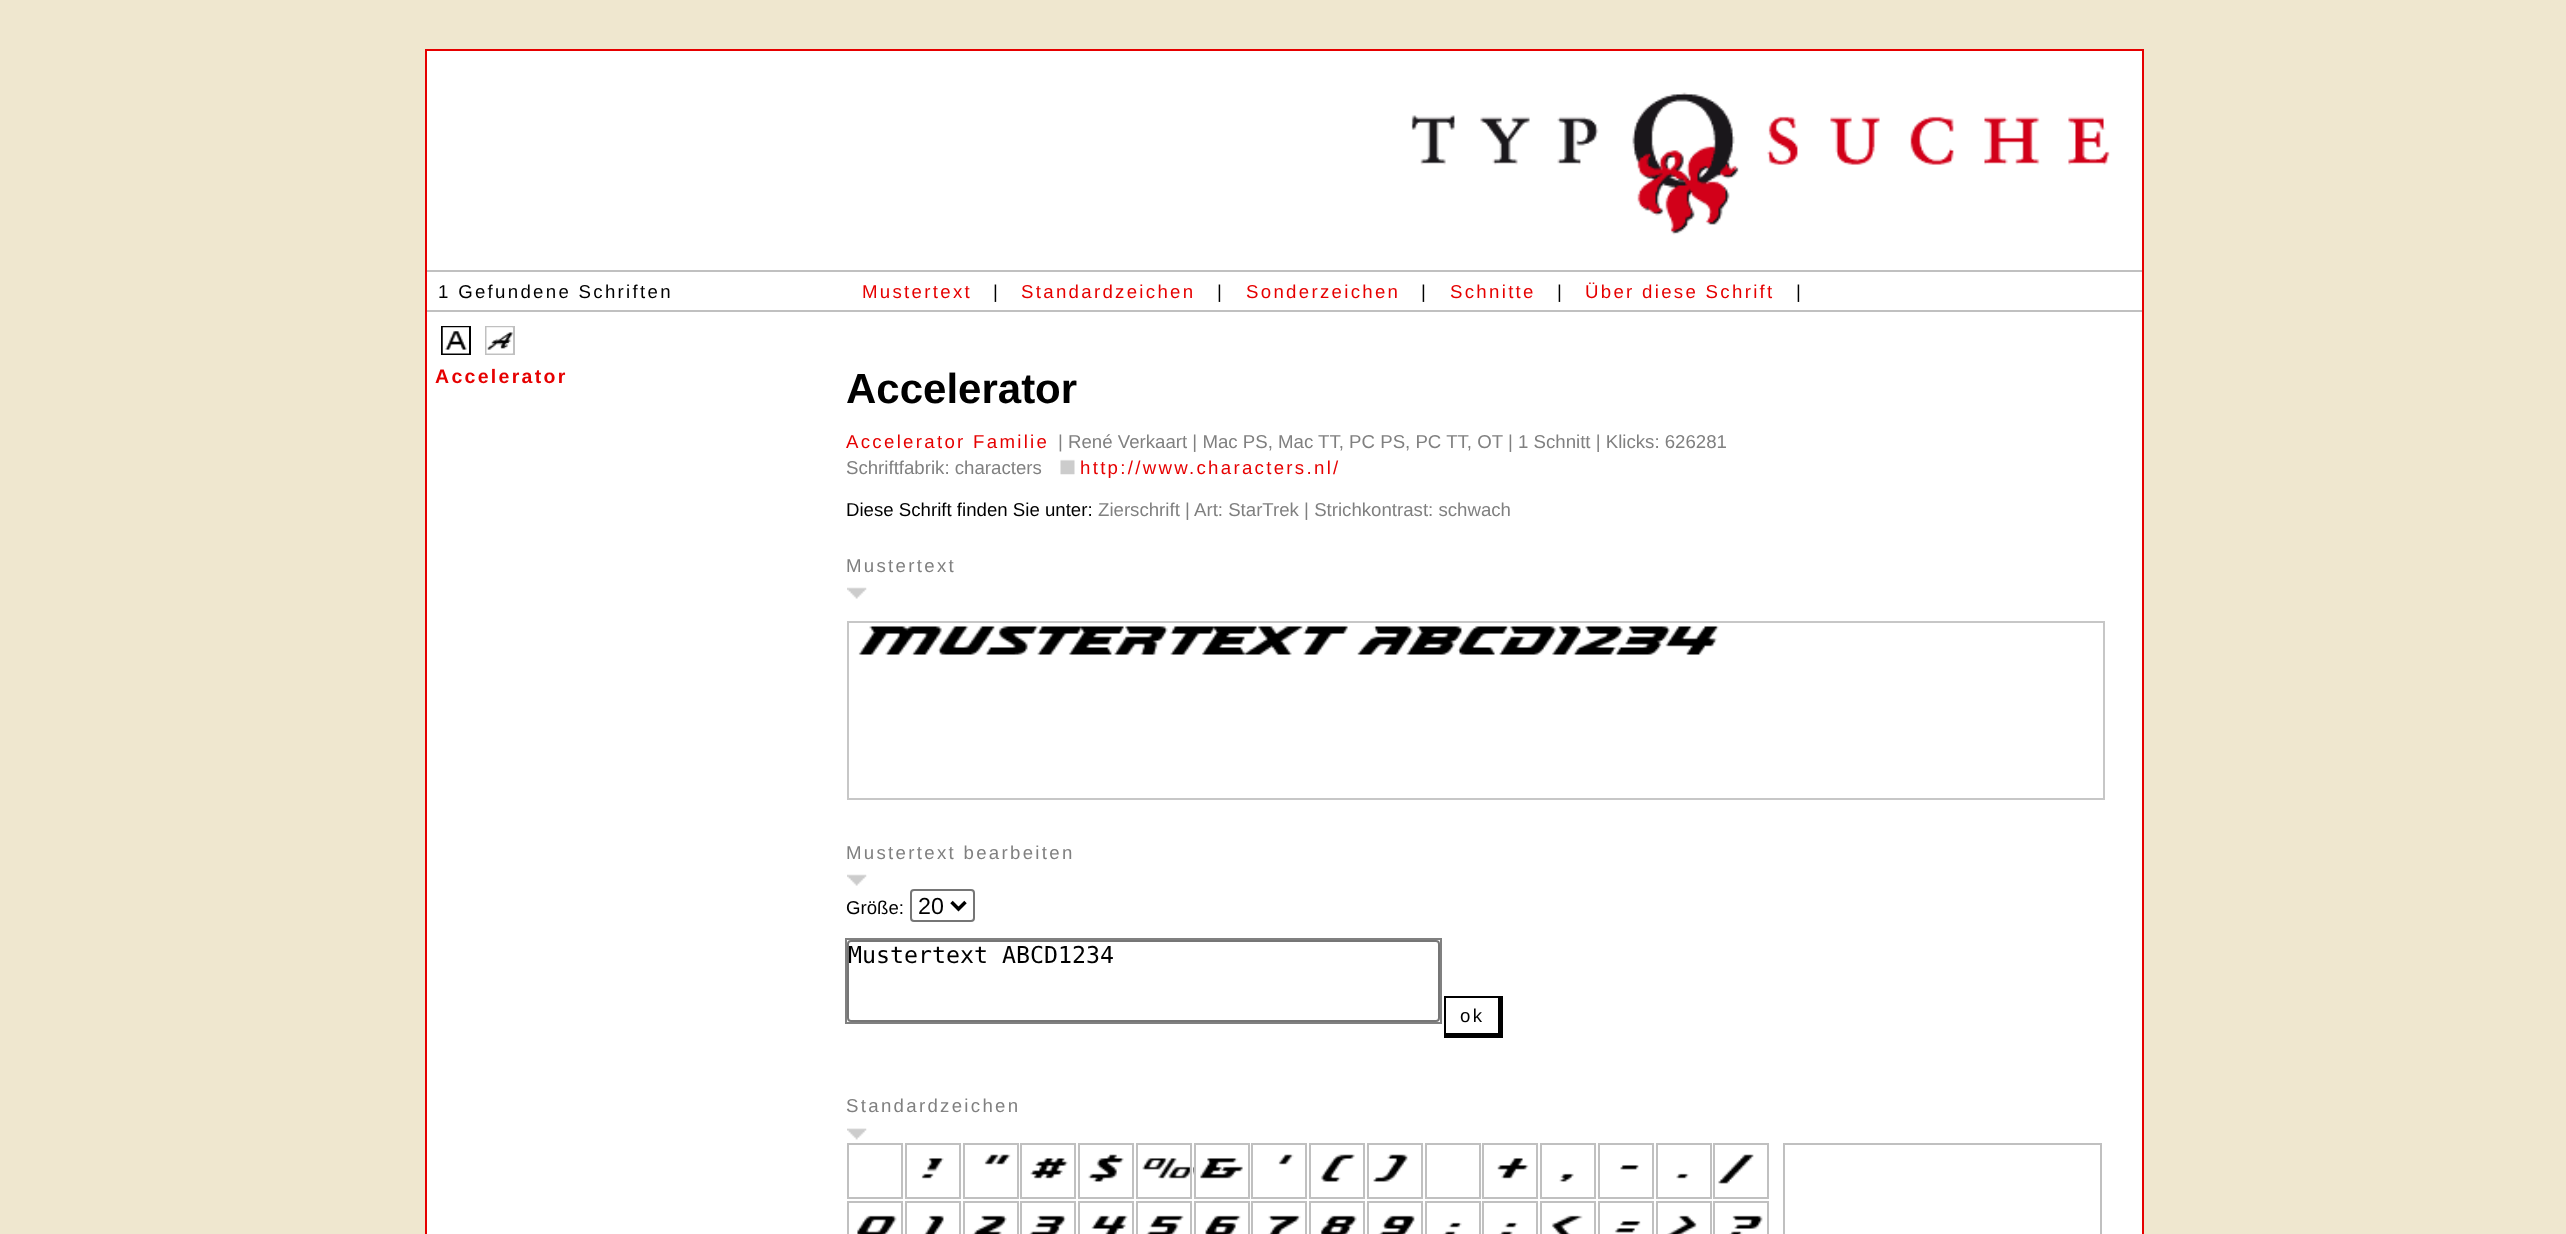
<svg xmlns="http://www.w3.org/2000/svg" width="2566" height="1234">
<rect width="100%" height="100%" fill="#efe7cf"/>
<rect x="426" y="50" width="1717" height="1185" fill="#fff" stroke="#e60000" stroke-width="2"/>
<image x="1411" y="92" width="699" height="143" href="media/1.png"/>
<rect x="427" y="270" width="1715" height="2" fill="#c0c0c0"/>
<rect x="427" y="310" width="1715" height="2" fill="#c0c0c0"/>
<text x="438" y="298" style="font-family:Liberation Sans;font-size:18.65px;letter-spacing:2.3px;fill:#000">1 Gefundene Schriften</text>
<text x="862" y="298" style="font-family:Liberation Sans;font-size:18.65px;letter-spacing:2.3px;fill:#e60000">Mustertext</text>
<text x="993" y="298" style="font-family:Liberation Sans;font-size:18.65px;letter-spacing:2.3px;fill:#000">|</text>
<text x="1021" y="298" style="font-family:Liberation Sans;font-size:18.65px;letter-spacing:2.3px;fill:#e60000">Standardzeichen</text>
<text x="1217" y="298" style="font-family:Liberation Sans;font-size:18.65px;letter-spacing:2.3px;fill:#000">|</text>
<text x="1246" y="298" style="font-family:Liberation Sans;font-size:18.65px;letter-spacing:2.3px;fill:#e60000">Sonderzeichen</text>
<text x="1421" y="298" style="font-family:Liberation Sans;font-size:18.65px;letter-spacing:2.3px;fill:#000">|</text>
<text x="1450" y="298" style="font-family:Liberation Sans;font-size:18.65px;letter-spacing:2.3px;fill:#e60000">Schnitte</text>
<text x="1557" y="298" style="font-family:Liberation Sans;font-size:18.65px;letter-spacing:2.3px;fill:#000">|</text>
<text x="1585" y="298" style="font-family:Liberation Sans;font-size:18.65px;letter-spacing:2.3px;fill:#e60000">Über diese Schrift</text>
<text x="1796" y="298" style="font-family:Liberation Sans;font-size:18.65px;letter-spacing:2.3px;fill:#000">|</text>
<rect x="442" y="327" width="28" height="27" fill="none" stroke="#000" stroke-width="2"/>
<rect x="486" y="327" width="28" height="27" fill="none" stroke="#c0c0c0" stroke-width="2"/>
<image x="442" y="327" width="27" height="27" href="media/2.png"/>
<image x="486" y="327" width="27" height="27" href="media/3.png"/>
<text x="435" y="383" style="font-family:Liberation Sans;font-size:19.5px;font-weight:bold;letter-spacing:2.3px;fill:#e60000">Accelerator</text>
<text x="846" y="403" style="font-family:Liberation Sans;font-size:42px;font-weight:bold;fill:#000">Accelerator</text>
<text x="846" y="448" style="font-family:Liberation Sans;font-size:18.65px;letter-spacing:2.3px;fill:#e60000">Accelerator Familie</text>
<text x="1058" y="448" style="font-family:Liberation Sans;font-size:18.65px;fill:#808080">| René Verkaart | Mac PS, Mac TT, PC PS, PC TT, OT | 1 Schnitt | Klicks: 626281</text>
<text x="846" y="474" style="font-family:Liberation Sans;font-size:18.65px;fill:#808080">Schriftfabrik: characters</text>
<image x="1059" y="451" width="16" height="24" href="media/4.png"/>
<text x="1080" y="474" style="font-family:Liberation Sans;font-size:18.65px;letter-spacing:2.3px;fill:#e60000">http://www.characters.nl/</text>
<text x="846" y="516" style="font-family:Liberation Sans;font-size:18.65px;fill:#000">Diese Schrift finden Sie unter:</text>
<text x="1098" y="516" style="font-family:Liberation Sans;font-size:18.65px;fill:#808080">Zierschrift | Art: StarTrek | Strichkontrast: schwach</text>
<text x="846" y="572" style="font-family:Liberation Sans;font-size:18.65px;letter-spacing:2.3px;fill:#808080">Mustertext</text>
<image x="847" y="587" width="20" height="12" href="media/5.png"/>
<image x="858" y="626" width="861" height="29" href="media/6.png"/>
<rect x="848" y="622" width="1256" height="177" fill="none" stroke="#c7c7c7" stroke-width="2"/>
<text x="846" y="859" style="font-family:Liberation Sans;font-size:18.65px;letter-spacing:2.3px;fill:#808080">Mustertext bearbeiten</text>
<image x="847" y="874" width="20" height="12" href="media/5.png"/>
<text x="846" y="914" style="font-family:Liberation Sans;font-size:18.65px;fill:#000">Größe:</text>
<rect x="911" y="890" width="63" height="31" rx="3" fill="none" stroke="#767676" stroke-width="2"/>
<path d="M951.5 902l7 7l7-7" fill="none" stroke="#000" stroke-width="3.5"/>
<text x="918" y="914" style="font-family:Liberation Sans;font-size:23.25px;fill:#000">20</text>
<rect x="848" y="941" width="591" height="80" rx="3" fill="none" stroke="#767676" stroke-width="2"/>
<rect x="846" y="939" width="595" height="84" fill="none" stroke="#808080" stroke-width="2"/>
<text x="848" y="963" style="font-family:DejaVu Sans Mono;font-size:23.25px;fill:#000">Mustertext ABCD1234</text>
<rect x="1444" y="996" width="59" height="2" fill="#000"/>
<rect x="1498" y="996" width="5" height="42" fill="#000"/>
<rect x="1444" y="1033" width="59" height="5" fill="#000"/>
<rect x="1444" y="996" width="2" height="42" fill="#000"/>
<text x="1460" y="1022" style="font-family:Liberation Sans;font-size:18.65px;letter-spacing:2.3px;fill:#000">ok</text>
<text x="846" y="1112" style="font-family:Liberation Sans;font-size:18.65px;letter-spacing:2.3px;fill:#808080">Standardzeichen</text>
<image x="847" y="1128" width="20" height="12" href="media/7.png"/>
<rect x="848" y="1144" width="54" height="54" fill="none" stroke="#c0c0c0" stroke-width="2"/>
<image x="921" y="1158" width="23" height="21" href="media/8.png"/>
<rect x="906" y="1144" width="54" height="54" fill="none" stroke="#c0c0c0" stroke-width="2"/>
<image x="984" y="1154" width="27" height="11" href="media/9.png"/>
<rect x="964" y="1144" width="54" height="54" fill="none" stroke="#c0c0c0" stroke-width="2"/>
<image x="1030" y="1158" width="38" height="21" href="media/10.png"/>
<rect x="1021" y="1144" width="54" height="54" fill="none" stroke="#c0c0c0" stroke-width="2"/>
<image x="1088" y="1154" width="36" height="28" href="media/11.png"/>
<rect x="1079" y="1144" width="54" height="54" fill="none" stroke="#c0c0c0" stroke-width="2"/>
<image x="1142" y="1158" width="48" height="21" href="media/12.png"/>
<rect x="1137" y="1144" width="54" height="54" fill="none" stroke="#c0c0c0" stroke-width="2"/>
<image x="1193" y="1158" width="50" height="21" href="media/13.png"/>
<rect x="1195" y="1144" width="54" height="54" fill="none" stroke="#c0c0c0" stroke-width="2"/>
<image x="1278" y="1154" width="16" height="11" href="media/14.png"/>
<rect x="1252" y="1144" width="54" height="54" fill="none" stroke="#c0c0c0" stroke-width="2"/>
<image x="1320" y="1154" width="35" height="28" href="media/15.png"/>
<rect x="1310" y="1144" width="54" height="54" fill="none" stroke="#c0c0c0" stroke-width="2"/>
<image x="1373" y="1154" width="35" height="28" href="media/16.png"/>
<rect x="1368" y="1144" width="54" height="54" fill="none" stroke="#c0c0c0" stroke-width="2"/>
<rect x="1426" y="1144" width="54" height="54" fill="none" stroke="#c0c0c0" stroke-width="2"/>
<image x="1497" y="1158" width="32" height="21" href="media/17.png"/>
<rect x="1483" y="1144" width="54" height="54" fill="none" stroke="#c0c0c0" stroke-width="2"/>
<image x="1559" y="1173" width="15" height="9" href="media/18.png"/>
<rect x="1541" y="1144" width="54" height="54" fill="none" stroke="#c0c0c0" stroke-width="2"/>
<image x="1620" y="1165" width="19" height="5" href="media/19.png"/>
<rect x="1599" y="1144" width="54" height="54" fill="none" stroke="#c0c0c0" stroke-width="2"/>
<image x="1676" y="1173" width="13" height="6" href="media/20.png"/>
<rect x="1657" y="1144" width="54" height="54" fill="none" stroke="#c0c0c0" stroke-width="2"/>
<image x="1718" y="1154" width="36" height="30" href="media/21.png"/>
<rect x="1714" y="1144" width="54" height="54" fill="none" stroke="#c0c0c0" stroke-width="2"/>
<image x="857" y="1215" width="40" height="19" href="media/22.png"/>
<rect x="848" y="1202" width="54" height="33" fill="none" stroke="#c0c0c0" stroke-width="2"/>
<image x="924" y="1215" width="20" height="19" href="media/23.png"/>
<rect x="906" y="1202" width="54" height="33" fill="none" stroke="#c0c0c0" stroke-width="2"/>
<image x="972" y="1215" width="35" height="19" href="media/24.png"/>
<rect x="964" y="1202" width="54" height="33" fill="none" stroke="#c0c0c0" stroke-width="2"/>
<image x="1029" y="1215" width="37" height="19" href="media/25.png"/>
<rect x="1021" y="1202" width="54" height="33" fill="none" stroke="#c0c0c0" stroke-width="2"/>
<image x="1091" y="1215" width="37" height="19" href="media/26.png"/>
<rect x="1079" y="1202" width="54" height="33" fill="none" stroke="#c0c0c0" stroke-width="2"/>
<image x="1146" y="1215" width="38" height="19" href="media/27.png"/>
<rect x="1137" y="1202" width="54" height="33" fill="none" stroke="#c0c0c0" stroke-width="2"/>
<image x="1205" y="1215" width="36" height="19" href="media/28.png"/>
<rect x="1195" y="1202" width="54" height="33" fill="none" stroke="#c0c0c0" stroke-width="2"/>
<image x="1268" y="1215" width="33" height="19" href="media/29.png"/>
<rect x="1252" y="1202" width="54" height="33" fill="none" stroke="#c0c0c0" stroke-width="2"/>
<image x="1320" y="1215" width="37" height="19" href="media/30.png"/>
<rect x="1310" y="1202" width="54" height="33" fill="none" stroke="#c0c0c0" stroke-width="2"/>
<image x="1378" y="1215" width="37" height="19" href="media/31.png"/>
<rect x="1368" y="1202" width="54" height="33" fill="none" stroke="#c0c0c0" stroke-width="2"/>
<image x="1443" y="1222" width="19" height="12" href="media/32.png"/>
<rect x="1426" y="1202" width="54" height="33" fill="none" stroke="#c0c0c0" stroke-width="2"/>
<image x="1499" y="1222" width="19" height="12" href="media/33.png"/>
<rect x="1483" y="1202" width="54" height="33" fill="none" stroke="#c0c0c0" stroke-width="2"/>
<image x="1551" y="1215" width="32" height="19" href="media/34.png"/>
<rect x="1541" y="1202" width="54" height="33" fill="none" stroke="#c0c0c0" stroke-width="2"/>
<image x="1614" y="1221" width="27" height="12" href="media/35.png"/>
<rect x="1599" y="1202" width="54" height="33" fill="none" stroke="#c0c0c0" stroke-width="2"/>
<image x="1667" y="1215" width="30" height="19" href="media/36.png"/>
<rect x="1657" y="1202" width="54" height="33" fill="none" stroke="#c0c0c0" stroke-width="2"/>
<image x="1729" y="1215" width="34" height="19" href="media/37.png"/>
<rect x="1714" y="1202" width="54" height="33" fill="none" stroke="#c0c0c0" stroke-width="2"/>
<rect x="1784" y="1144" width="317" height="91" fill="none" stroke="#c0c0c0" stroke-width="2"/>
</svg>
